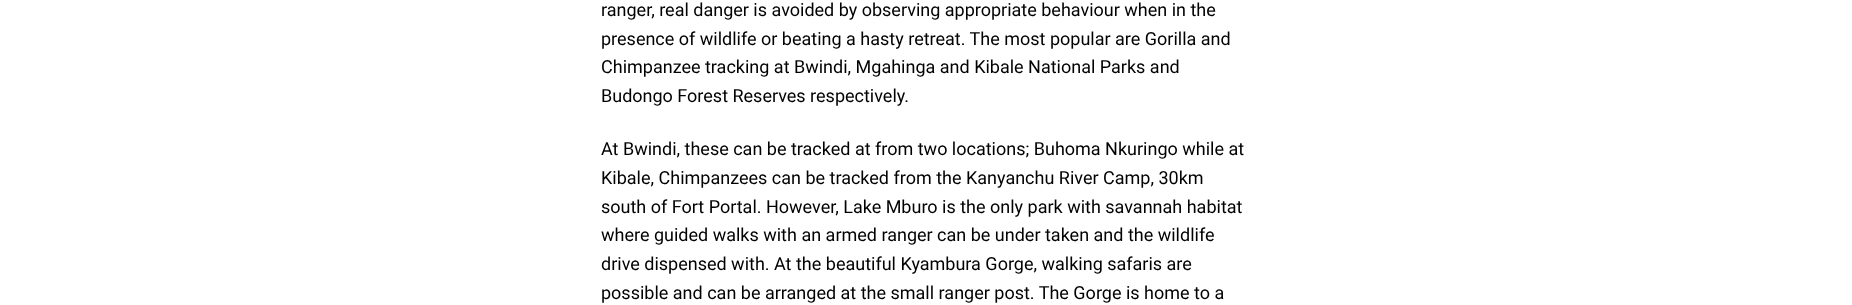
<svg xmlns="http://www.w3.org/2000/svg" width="1852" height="305">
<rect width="100%" height="100%" fill="#fff"/>
<text x="601" y="16" style="font-family:Roboto;font-size:18px;fill:#000">ranger, real danger is avoided by observing appropriate behaviour when in the</text>
<text x="601" y="45" style="font-family:Roboto;font-size:18px;fill:#000">presence of wildlife or beating a hasty retreat. The most popular are Gorilla and</text>
<text x="601" y="73" style="font-family:Roboto;font-size:18px;fill:#000">Chimpanzee tracking at Bwindi, Mgahinga and Kibale National Parks and</text>
<text x="601" y="102" style="font-family:Roboto;font-size:18px;fill:#000">Budongo Forest Reserves respectively.</text>
<text x="601" y="155" style="font-family:Roboto;font-size:18px;fill:#000">At Bwindi, these can be tracked at from two locations; Buhoma Nkuringo while at</text>
<text x="601" y="184" style="font-family:Roboto;font-size:18px;fill:#000">Kibale, Chimpanzees can be tracked from the Kanyanchu River Camp, 30km</text>
<text x="601" y="213" style="font-family:Roboto;font-size:18px;fill:#000">south of Fort Portal. However, Lake Mburo is the only park with savannah habitat</text>
<text x="601" y="241" style="font-family:Roboto;font-size:18px;fill:#000">where guided walks with an armed ranger can be under taken and the wildlife</text>
<text x="601" y="270" style="font-family:Roboto;font-size:18px;fill:#000">drive dispensed with. At the beautiful Kyambura Gorge, walking safaris are</text>
<text x="601" y="299" style="font-family:Roboto;font-size:18px;fill:#000">possible and can be arranged at the small ranger post. The Gorge is home to a</text>
</svg>
